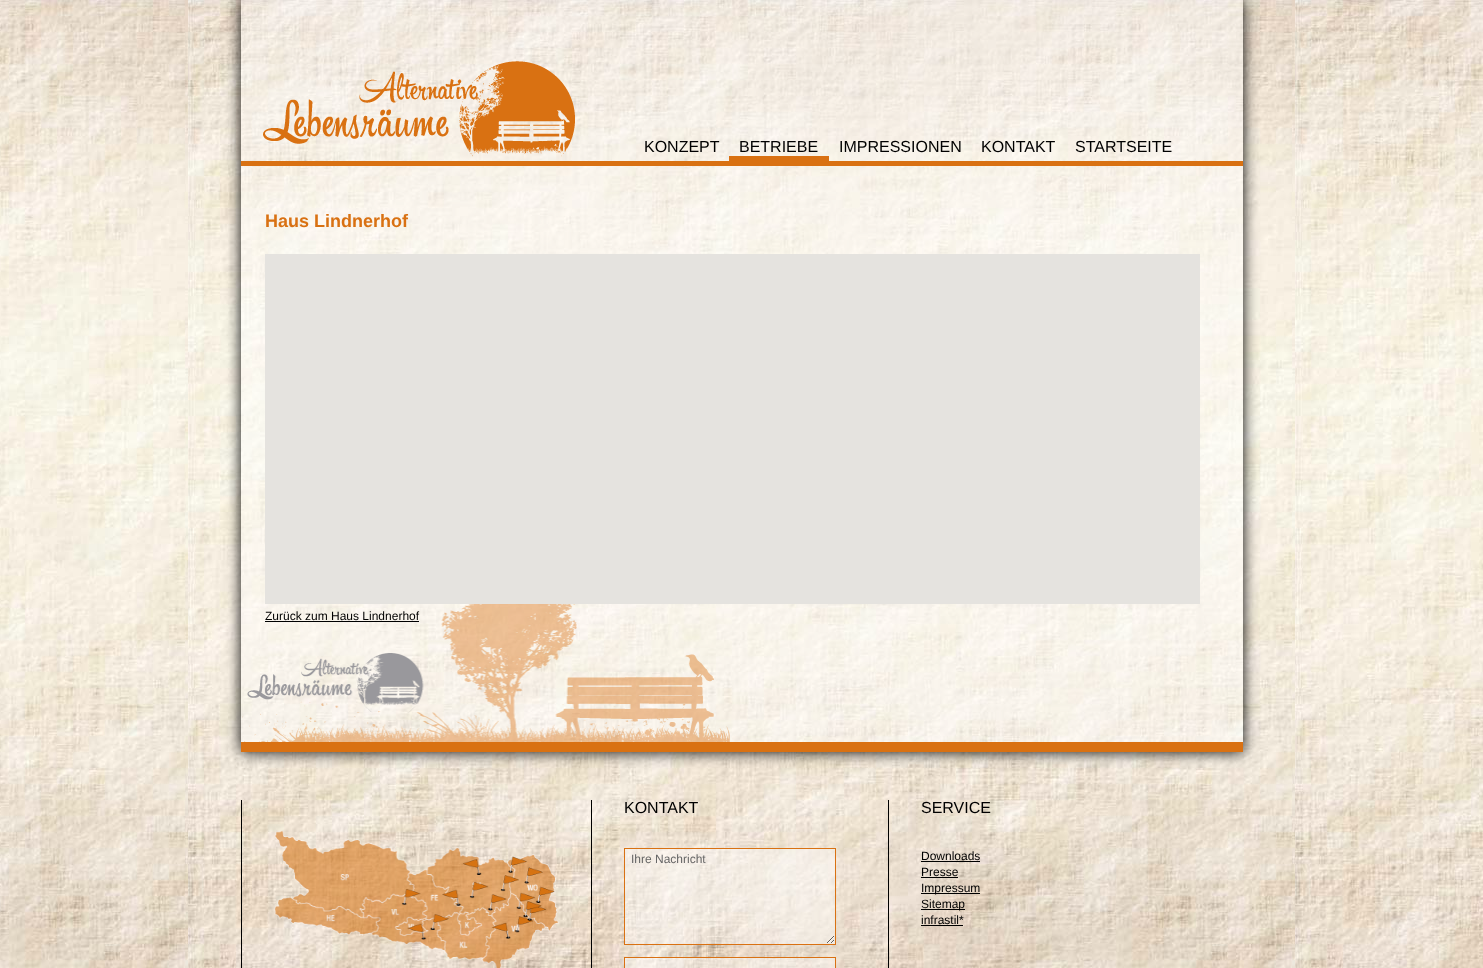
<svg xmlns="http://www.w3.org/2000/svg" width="1483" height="968">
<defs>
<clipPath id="clip1"><path d="M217 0h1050v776h-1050zm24 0h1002v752h-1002z" clip-rule="evenodd"/></clipPath>
</defs>
<rect width="100%" height="100%" fill="#fff"/>
<image x="0" y="0" width="1483" height="968" href="media/1.png"/>
<g clip-path="url(#clip1)">
<rect x="241" width="1002" height="752" fill="#000" filter="blur(7.5px)"/>
</g>
<rect x="241" width="1002" height="742" fill="#ffffff66"/>
<rect x="241" y="742" width="1002" height="10" fill="#d97112"/>
<rect x="241" y="161" width="1002" height="5" fill="#d97112"/>
<image x="263" y="61" width="312" height="96" href="media/2.png"/>
<text x="644" y="152" style="font-family:Liberation Sans;font-size:16px;fill:#000">KONZEPT</text>
<rect x="729" y="156" width="100" height="5" fill="#d97112"/>
<text x="739" y="152" style="font-family:Liberation Sans;font-size:16px;fill:#000">BETRIEBE</text>
<text x="839" y="152" style="font-family:Liberation Sans;font-size:16px;fill:#000">IMPRESSIONEN</text>
<text x="981" y="152" style="font-family:Liberation Sans;font-size:16px;fill:#000">KONTAKT</text>
<text x="1075" y="152" style="font-family:Liberation Sans;font-size:16px;fill:#000">STARTSEITE</text>
<image x="242" y="604" width="488" height="138" href="media/3.png"/>
<text x="265" y="227" style="font-family:Liberation Sans;font-size:18px;font-weight:bold;fill:#d97112">Haus Lindnerhof</text>
<rect x="265" y="254" width="935" height="350" fill="#e5e3df"/>
<text x="265" y="620" style="font-family:Liberation Sans;font-size:12px;fill:#000">Zurück zum Haus Lindnerhof</text>
<rect x="265" y="621" width="154" height="1" fill="#000"/>
<rect x="241" y="800" width="1" height="168" fill="#000"/>
<image x="274" y="831" width="285" height="137" href="media/4.png"/>
<rect x="591" y="800" width="1" height="168" fill="#000"/>
<text x="624" y="813" style="font-family:Liberation Sans;font-size:16px;fill:#000">KONTAKT</text>
<image x="625" y="849" width="210" height="95" href="media/5.png"/>
<rect x="624.5" y="848.5" width="211" height="96" fill="none" stroke="#d97112"/>
<text x="631" y="863" style="font-family:Liberation Sans;font-size:12px;fill:#666">Ihre Nachricht</text>
<rect x="624.5" y="957.5" width="211" height="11" fill="#ffffff66" stroke="#d97112"/>
<rect x="888" y="800" width="1" height="168" fill="#000"/>
<text x="921" y="813" style="font-family:Liberation Sans;font-size:16px;fill:#000">SERVICE</text>
<text x="921" y="860" style="font-family:Liberation Sans;font-size:12px;fill:#000">Downloads</text>
<rect x="921" y="861" width="59" height="1" fill="#000"/>
<text x="921" y="876" style="font-family:Liberation Sans;font-size:12px;fill:#000">Presse</text>
<rect x="921" y="877" width="37" height="1" fill="#000"/>
<rect x="921" y="893" width="59" height="1" fill="#000"/>
<text x="921" y="892" style="font-family:Liberation Sans;font-size:12px;fill:#000">Impressum</text>
<rect x="921" y="909" width="44" height="1" fill="#000"/>
<text x="921" y="908" style="font-family:Liberation Sans;font-size:12px;fill:#000">Sitemap</text>
<text x="921" y="924" style="font-family:Liberation Sans;font-size:12px;fill:#000">infrastil*</text>
<rect x="921" y="925" width="42" height="1" fill="#000"/>
</svg>
